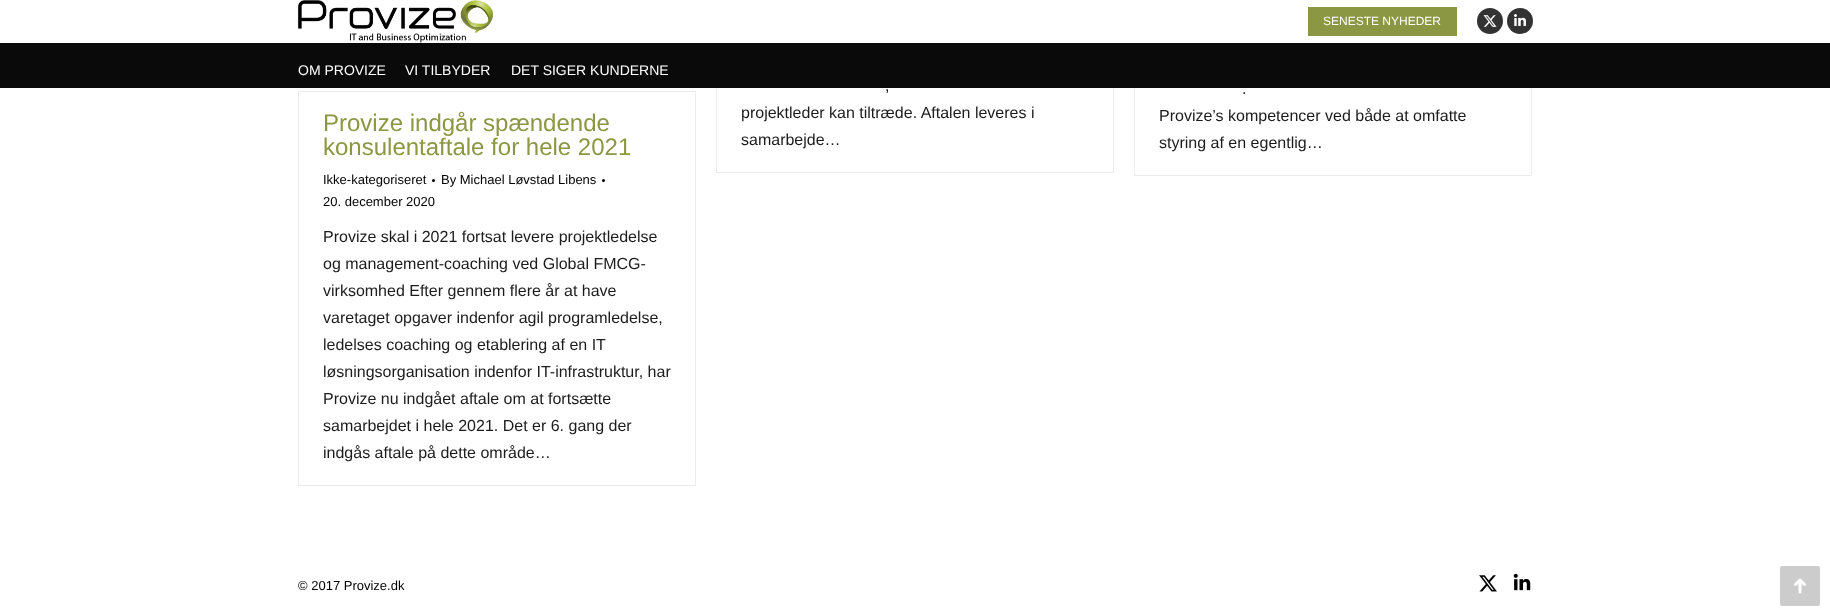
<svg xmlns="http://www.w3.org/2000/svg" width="1830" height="616">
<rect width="100%" height="100%" fill="#fff"/>
<rect x="716.5" y="-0.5" width="397" height="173" fill="none" stroke="#ececec"/>
<rect x="1134.5" y="-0.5" width="397" height="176" fill="none" stroke="#ececec"/>
<rect x="716" width="816" height="43" fill="#fff"/>
<image x="297" y="0" width="196" height="43" href="media/1.png"/>
<rect x="1308" y="7" width="149" height="29" fill="#8c9743"/>
<text x="1323" y="25" style="font-family:Liberation Sans;font-size:12px;fill:#fff">SENESTE NYHEDER</text>
<circle cx="1490" cy="21" r="13" fill="#333"/>
<image x="1483" y="15" width="14" height="12" href="media/2.png"/>
<circle cx="1520" cy="21" r="13" fill="#333"/>
<image x="1514" y="14" width="12" height="12" href="media/3.png"/>
<rect y="43" width="1830" height="45" fill="#0a0a0a"/>
<text x="298" y="75" style="font-family:Liberation Sans;font-size:14px;fill:#fff">OM PROVIZE</text>
<text x="405" y="75" style="font-family:Liberation Sans;font-size:14px;fill:#fff">VI TILBYDER</text>
<text x="511" y="75" style="font-family:Liberation Sans;font-size:14px;fill:#fff">DET SIGER KUNDERNE</text>
<rect x="298.5" y="91.5" width="397" height="394" fill="none" stroke="#ececec"/>
<text x="323" y="131" style="font-family:Liberation Sans;font-size:24px;fill:#8c9743">Provize indgår spændende</text>
<text x="323" y="155" style="font-family:Liberation Sans;font-size:24px;fill:#8c9743">konsulentaftale for hele 2021</text>
<text x="323" y="184" style="font-family:Liberation Sans;font-size:13px;fill:#000">Ikke-kategoriseret</text>
<circle cx="433.5" cy="180.5" r="1.5" fill="#000"/>
<text x="441" y="184" style="font-family:Liberation Sans;font-size:13px;fill:#000">By Michael Løvstad Libens</text>
<circle cx="603.5" cy="180.5" r="1.5" fill="#000"/>
<text x="323" y="206" style="font-family:Liberation Sans;font-size:13px;fill:#000">20. december 2020</text>
<text x="323" y="242" style="font-family:Liberation Sans;font-size:16px;fill:#1c1c1c">Provize skal i 2021 fortsat levere projektledelse</text>
<text x="323" y="269" style="font-family:Liberation Sans;font-size:16px;fill:#1c1c1c">og management-coaching ved Global FMCG-</text>
<text x="323" y="296" style="font-family:Liberation Sans;font-size:16px;fill:#1c1c1c">virksomhed Efter gennem flere år at have</text>
<text x="323" y="323" style="font-family:Liberation Sans;font-size:16px;fill:#1c1c1c">varetaget opgaver indenfor agil programledelse,</text>
<text x="323" y="350" style="font-family:Liberation Sans;font-size:16px;fill:#1c1c1c">ledelses coaching og etablering af en IT</text>
<text x="323" y="377" style="font-family:Liberation Sans;font-size:16px;fill:#1c1c1c">løsningsorganisation indenfor IT-infrastruktur, har</text>
<text x="323" y="404" style="font-family:Liberation Sans;font-size:16px;fill:#1c1c1c">Provize nu indgået aftale om at fortsætte</text>
<text x="323" y="431" style="font-family:Liberation Sans;font-size:16px;fill:#1c1c1c">samarbejdet i hele 2021. Det er 6. gang der</text>
<text x="323" y="458" style="font-family:Liberation Sans;font-size:16px;fill:#1c1c1c">indgås aftale på dette område…</text>
<text x="885" y="91" style="font-family:Liberation Sans;font-size:16px;fill:#1c1c1c">,</text>
<text x="741" y="118" style="font-family:Liberation Sans;font-size:16px;fill:#1c1c1c">projektleder kan tiltræde. Aftalen leveres i</text>
<text x="741" y="145" style="font-family:Liberation Sans;font-size:16px;fill:#1c1c1c">samarbejde…</text>
<text x="1242" y="94" style="font-family:Liberation Sans;font-size:16px;fill:#1c1c1c">.</text>
<text x="1159" y="121" style="font-family:Liberation Sans;font-size:16px;fill:#1c1c1c">Provize’s kompetencer ved både at omfatte</text>
<text x="1159" y="148" style="font-family:Liberation Sans;font-size:16px;fill:#1c1c1c">styring af en egentlig…</text>
<text x="298" y="590" style="font-family:Liberation Sans;font-size:13px;fill:#000">© 2017 Provize.dk</text>
<image x="1479" y="575" width="18" height="17" href="media/4.png"/>
<image x="1513" y="573" width="18" height="18" href="media/5.png"/>
<rect x="1780" y="566" width="40" height="40" rx="2" fill="#ccc"/>
<image x="1794" y="578" width="12" height="16" href="media/6.png"/>
</svg>
